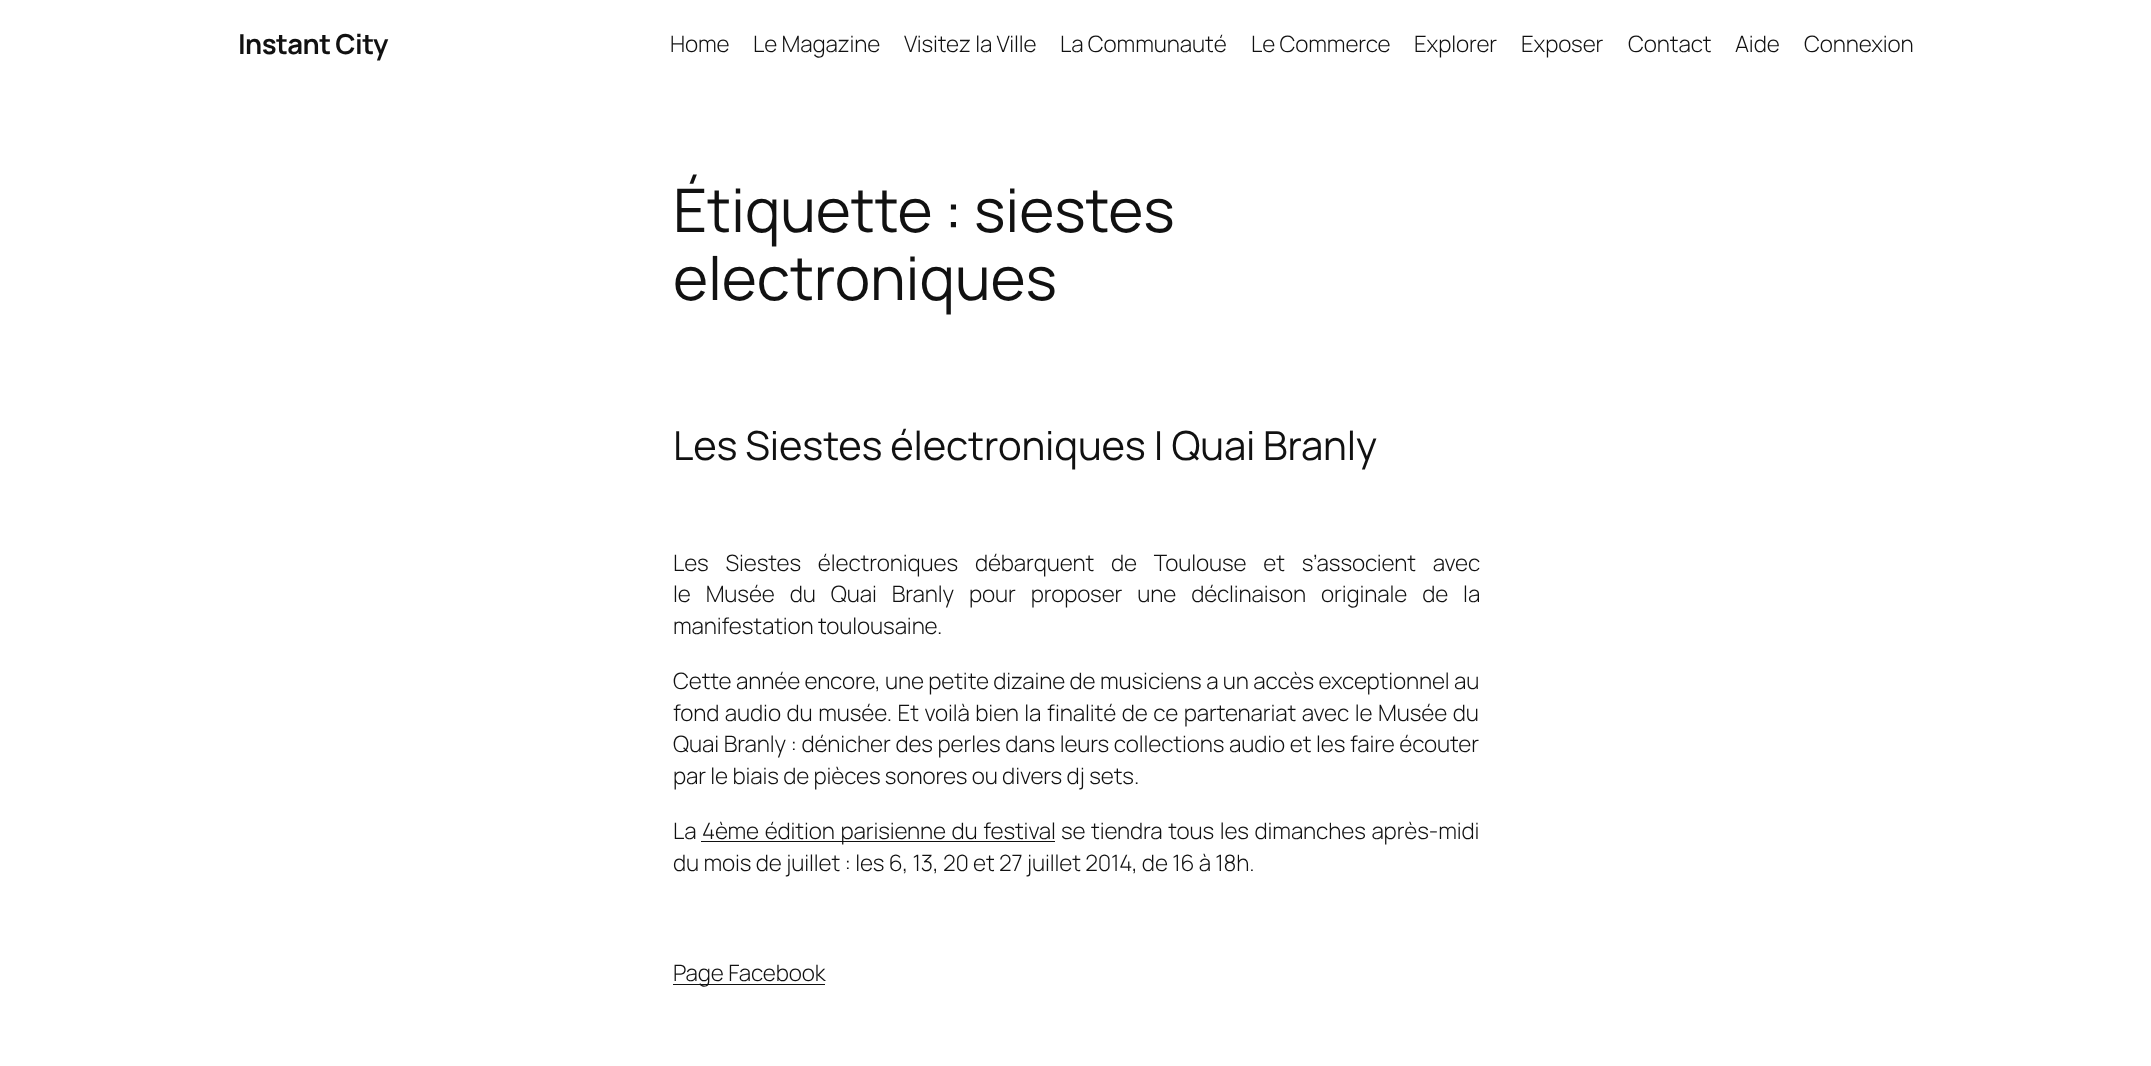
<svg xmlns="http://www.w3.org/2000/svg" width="2151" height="1066">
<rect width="100%" height="100%" fill="#fff"/>
<text x="238" y="54" style="font-family:Manrope;font-size:27.5px;font-weight:bold;letter-spacing:-0.6px;fill:#111">Instant City</text>
<text x="670" y="52" style="font-family:Manrope;font-size:22.5px;font-weight:300;letter-spacing:-0.12px;fill:#111">Home</text>
<text x="753" y="52" style="font-family:Manrope;font-size:22.5px;font-weight:300;letter-spacing:-0.12px;fill:#111">Le Magazine</text>
<text x="904" y="52" style="font-family:Manrope;font-size:22.5px;font-weight:300;letter-spacing:-0.12px;fill:#111">Visitez la Ville</text>
<text x="1060" y="52" style="font-family:Manrope;font-size:22.5px;font-weight:300;letter-spacing:-0.12px;fill:#111">La Communauté</text>
<text x="1251" y="52" style="font-family:Manrope;font-size:22.5px;font-weight:300;letter-spacing:-0.12px;fill:#111">Le Commerce</text>
<text x="1414" y="52" style="font-family:Manrope;font-size:22.5px;font-weight:300;letter-spacing:-0.12px;fill:#111">Explorer</text>
<text x="1521" y="52" style="font-family:Manrope;font-size:22.5px;font-weight:300;letter-spacing:-0.12px;fill:#111">Exposer</text>
<text x="1628" y="52" style="font-family:Manrope;font-size:22.5px;font-weight:300;letter-spacing:-0.12px;fill:#111">Contact</text>
<text x="1735" y="52" style="font-family:Manrope;font-size:22.5px;font-weight:300;letter-spacing:-0.12px;fill:#111">Aide</text>
<text x="1804" y="52" style="font-family:Manrope;font-size:22.5px;font-weight:300;letter-spacing:-0.12px;fill:#111">Connexion</text>
<text x="673" y="232" style="font-family:Manrope;font-size:60px;letter-spacing:-0.12px;fill:#111">Étiquette : siestes</text>
<text x="673" y="300" style="font-family:Manrope;font-size:60px;letter-spacing:-0.12px;fill:#111">electroniques</text>
<text x="673" y="460" style="font-family:Manrope;font-size:40px;letter-spacing:-0.12px;fill:#111">Les Siestes électroniques | Quai Branly</text>
<text x="673" y="571" word-spacing="12.5" style="font-family:Manrope;font-size:22.5px;font-weight:300;letter-spacing:-0.12px;fill:#111">Les Siestes électroniques débarquent de Toulouse et s’associent avec</text>
<text x="673" y="602" word-spacing="10.6" style="font-family:Manrope;font-size:22.5px;font-weight:300;letter-spacing:-0.12px;fill:#111">le Musée du Quai Branly pour proposer une déclinaison originale de la</text>
<text x="673" y="634" style="font-family:Manrope;font-size:22.5px;font-weight:300;letter-spacing:-0.12px;fill:#111">manifestation toulousaine.</text>
<text x="673" y="689" word-spacing="0.1" style="font-family:Manrope;font-size:22.5px;font-weight:300;letter-spacing:-0.12px;fill:#111">Cette année encore, une petite dizaine de musiciens a un accès exceptionnel au</text>
<text x="673" y="721" word-spacing="1.25" style="font-family:Manrope;font-size:22.5px;font-weight:300;letter-spacing:-0.12px;fill:#111">fond audio du musée. Et voilà bien la finalité de ce partenariat avec le Musée du</text>
<text x="673" y="752" word-spacing="0.3" style="font-family:Manrope;font-size:22.5px;font-weight:300;letter-spacing:-0.12px;fill:#111">Quai Branly : dénicher des perles dans leurs collections audio et les faire écouter</text>
<text x="673" y="784" style="font-family:Manrope;font-size:22.5px;font-weight:300;letter-spacing:-0.12px;fill:#111">par le biais de pièces sonores ou divers dj sets.</text>
<text x="673" y="839" style="font-family:Manrope;font-size:22.5px;font-weight:300;letter-spacing:-0.12px;fill:#111">La</text>
<rect x="701" y="841" width="354" height="1" fill="#111"/>
<text x="702" y="839" word-spacing="1.25" style="font-family:Manrope;font-size:22.5px;font-weight:300;letter-spacing:-0.12px;fill:#111">4ème édition parisienne du festival</text>
<text x="1061" y="839" word-spacing="1.25" style="font-family:Manrope;font-size:22.5px;font-weight:300;letter-spacing:-0.12px;fill:#111">se tiendra tous les dimanches après-midi</text>
<text x="673" y="871" style="font-family:Manrope;font-size:22.5px;font-weight:300;letter-spacing:-0.12px;fill:#111">du mois de juillet : les 6, 13, 20 et 27 juillet 2014, de 16 à 18h.</text>
<rect x="673" y="984" width="152" height="1" fill="#111"/>
<text x="673" y="981" style="font-family:Manrope;font-size:22.5px;font-weight:300;letter-spacing:-0.12px;fill:#111">Page Facebook</text>
</svg>
